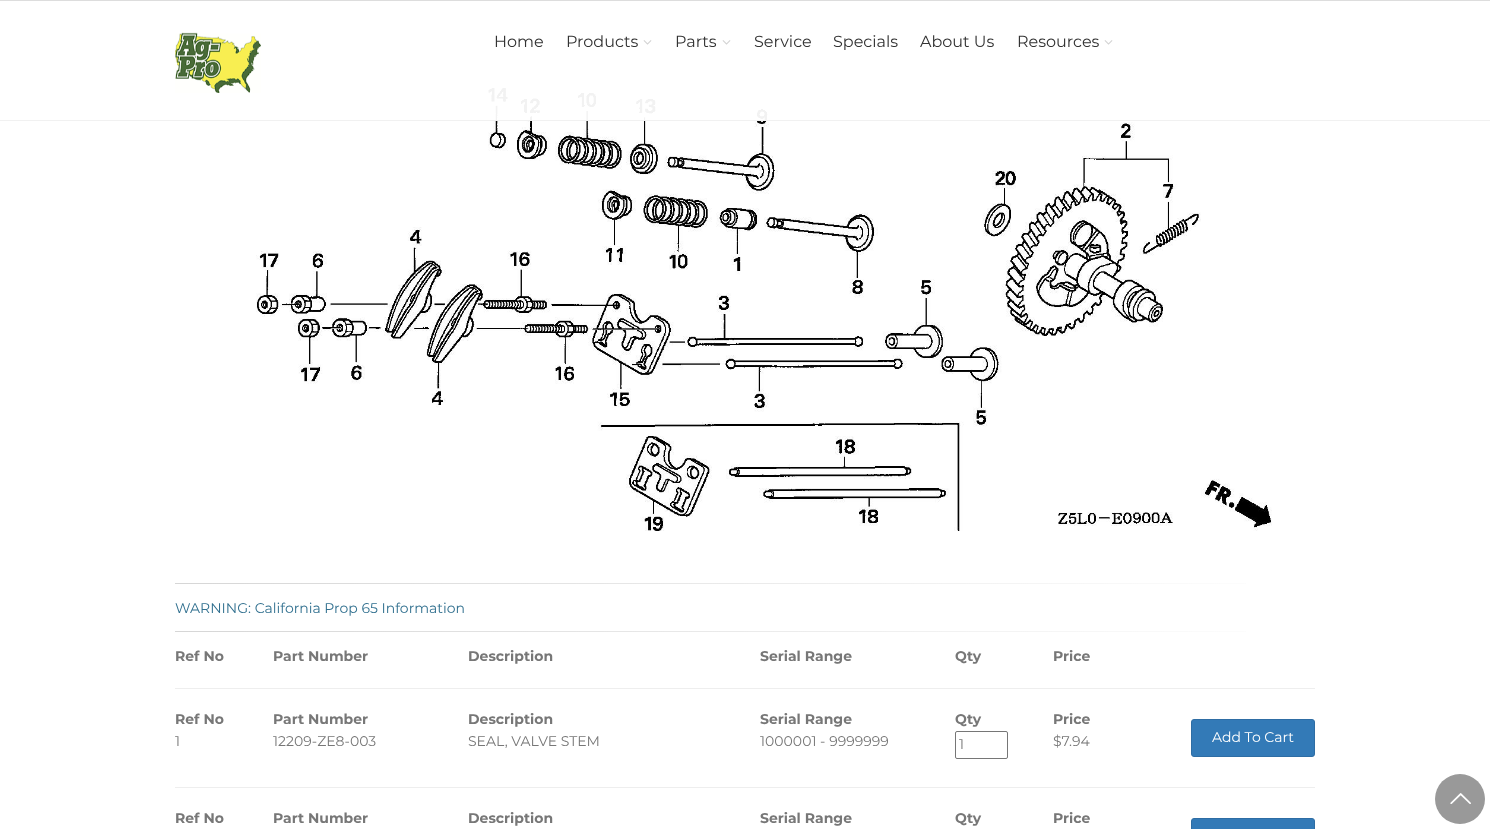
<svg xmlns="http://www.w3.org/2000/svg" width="1490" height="829">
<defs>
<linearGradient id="g1" gradientUnits="userSpaceOnUse" x1="175" y1="584" x2="1315" y2="584"><stop offset="0" stop-color="#d6d6d6"/><stop offset="1" stop-color="#fff"/></linearGradient>
<linearGradient id="g2" gradientUnits="userSpaceOnUse" x1="175" y1="632" x2="1315" y2="632"><stop offset="0" stop-color="#d6d6d6"/><stop offset="1" stop-color="#fff"/></linearGradient>
</defs>
<rect width="100%" height="100%" fill="#fff"/>
<image x="256" y="84" width="1016" height="447" href="media/3.png"/>
<rect x="488" y="84" width="281" height="36" fill="#fffffff2"/>
<rect width="1490" height="1" fill="#ddd"/>
<rect y="120" width="1490" height="1" fill="#f1f1f1"/>
<image x="175" y="32" width="86" height="61" href="media/1.png"/>
<text x="494" y="47" style="font-family:Montserrat;font-size:16px;fill:#333">Home</text>
<text x="566" y="47" style="font-family:Montserrat;font-size:16px;fill:#333">Products</text>
<image x="643" y="40" width="9" height="5" href="media/2.png"/>
<text x="675" y="47" style="font-family:Montserrat;font-size:16px;fill:#333">Parts</text>
<image x="722" y="40" width="9" height="5" href="media/2.png"/>
<text x="754" y="47" style="font-family:Montserrat;font-size:16px;fill:#333">Service</text>
<text x="833" y="47" style="font-family:Montserrat;font-size:16px;fill:#333">Specials</text>
<text x="920" y="47" style="font-family:Montserrat;font-size:16px;fill:#333">About Us</text>
<text x="1017" y="47" style="font-family:Montserrat;font-size:16px;fill:#333">Resources</text>
<image x="1104" y="40" width="9" height="5" href="media/2.png"/>
<rect x="175" y="583" width="1071" height="1" fill="url(#g1)"/>
<text x="175" y="613" style="font-family:Montserrat;font-size:14px;fill:#31708f">WARNING: California Prop 65 Information</text>
<rect x="175" y="631" width="1071" height="1" fill="url(#g2)"/>
<text x="175" y="661" style="font-family:Montserrat;font-size:14px;font-weight:bold;fill:#777">Ref No</text>
<text x="273" y="661" style="font-family:Montserrat;font-size:14px;font-weight:bold;fill:#777">Part Number</text>
<text x="468" y="661" style="font-family:Montserrat;font-size:14px;font-weight:bold;fill:#777">Description</text>
<text x="760" y="661" style="font-family:Montserrat;font-size:14px;font-weight:bold;fill:#777">Serial Range</text>
<text x="955" y="661" style="font-family:Montserrat;font-size:14px;font-weight:bold;fill:#777">Qty</text>
<text x="1053" y="661" style="font-family:Montserrat;font-size:14px;font-weight:bold;fill:#777">Price</text>
<rect x="175" y="688" width="1140" height="1" fill="#eee"/>
<text x="175" y="724" style="font-family:Montserrat;font-size:14px;font-weight:bold;fill:#777">Ref No</text>
<text x="175" y="746" style="font-family:Montserrat;font-size:14px;fill:#777">1</text>
<text x="273" y="724" style="font-family:Montserrat;font-size:14px;font-weight:bold;fill:#777">Part Number</text>
<text x="273" y="746" style="font-family:Montserrat;font-size:14px;fill:#777">12209-ZE8-003</text>
<text x="468" y="724" style="font-family:Montserrat;font-size:14px;font-weight:bold;fill:#777">Description</text>
<text x="468" y="746" style="font-family:Montserrat;font-size:14px;fill:#777">SEAL, VALVE STEM</text>
<text x="760" y="724" style="font-family:Montserrat;font-size:14px;font-weight:bold;fill:#777">Serial Range</text>
<text x="760" y="746" style="font-family:Montserrat;font-size:14px;fill:#777">1000001 - 9999999</text>
<text x="955" y="724" style="font-family:Montserrat;font-size:14px;font-weight:bold;fill:#777">Qty</text>
<rect x="955.5" y="731.5" width="52" height="27" rx="1.5" fill="none" stroke="#767676"/>
<text x="959" y="749" style="font-family:Montserrat;font-size:14px;fill:#777">1</text>
<text x="1053" y="724" style="font-family:Montserrat;font-size:14px;font-weight:bold;fill:#777">Price</text>
<text x="1053" y="746" style="font-family:Montserrat;font-size:14px;fill:#777">$7.94</text>
<rect x="1191.5" y="719.5" width="123" height="37" rx="2.5" fill="#337ab7" stroke="#2e6da4"/>
<text x="1212" y="742" style="font-family:Montserrat;font-size:14px;fill:#fff">Add To Cart</text>
<rect x="175" y="787" width="1140" height="1" fill="#eee"/>
<text x="175" y="823" style="font-family:Montserrat;font-size:14px;font-weight:bold;fill:#777">Ref No</text>
<text x="273" y="823" style="font-family:Montserrat;font-size:14px;font-weight:bold;fill:#777">Part Number</text>
<text x="468" y="823" style="font-family:Montserrat;font-size:14px;font-weight:bold;fill:#777">Description</text>
<text x="760" y="823" style="font-family:Montserrat;font-size:14px;font-weight:bold;fill:#777">Serial Range</text>
<text x="955" y="823" style="font-family:Montserrat;font-size:14px;font-weight:bold;fill:#777">Qty</text>
<text x="1053" y="823" style="font-family:Montserrat;font-size:14px;font-weight:bold;fill:#777">Price</text>
<rect x="1191.5" y="818.5" width="123" height="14" rx="2.5" fill="#337ab7" stroke="#2e6da4"/>
<circle cx="1460" cy="799" r="25" fill="#999"/>
<image x="1450" y="793" width="21" height="11" href="media/4.png"/>
</svg>
